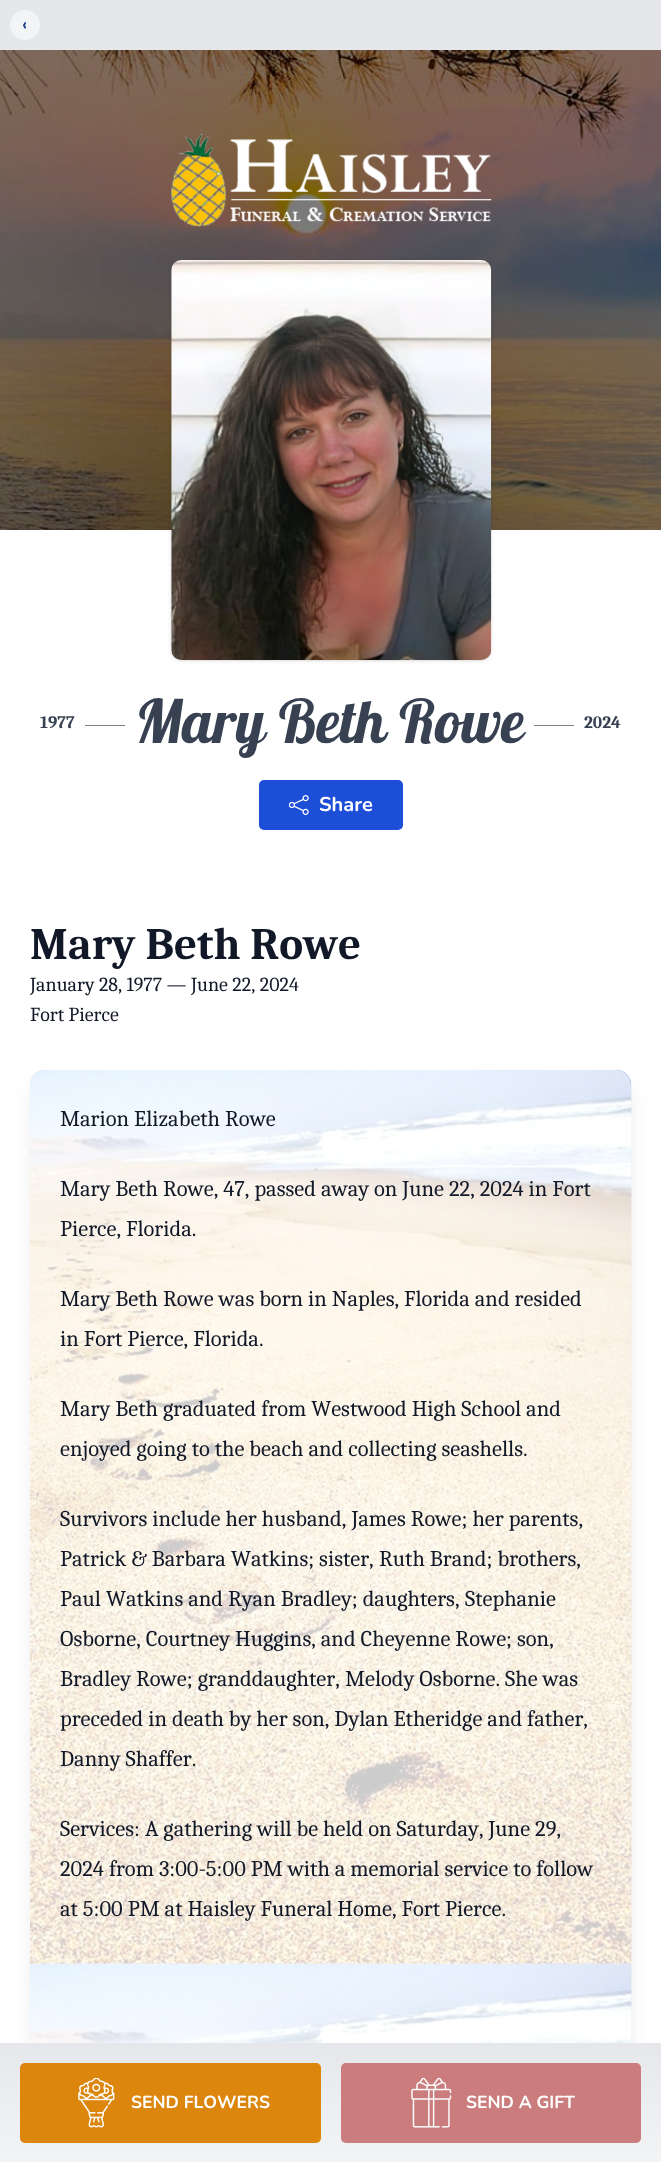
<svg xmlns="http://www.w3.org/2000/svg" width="661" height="2162">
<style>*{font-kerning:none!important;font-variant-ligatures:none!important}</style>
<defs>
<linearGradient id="g1" gradientUnits="userSpaceOnUse" x1="331" y1="2043" x2="331" y2="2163"><stop offset="0" stop-color="#e5e7eb"/><stop offset="1" stop-color="#f3f4f6"/></linearGradient>
</defs>
<rect width="100%" height="100%" fill="#fff"/>
<rect width="661" height="50" fill="#e5e7eb"/>
<circle cx="25" cy="25" r="15" fill="#f3f4f6"/>
<text x="22" y="30" style="font-family:Nunito;font-size:17.5px;font-weight:bold;fill:#1e3a8a">‹</text>
<image x="0" y="50" width="661" height="480" href="media/1.png"/>
<image x="171" y="133" width="321" height="94" href="media/2.png"/>
<rect x="173" y="263" width="317" height="397" rx="9" fill="#0000001a" filter="blur(1px)"/>
<rect x="171" y="261" width="320" height="400" rx="10" fill="#0000001a" filter="blur(2px)"/>
<image x="171" y="260" width="321" height="400" href="media/3.png"/>
<text x="40" y="728" style="font-family:Caladea;font-size:17.5px;font-weight:bold;fill:#374151">1977</text>
<rect x="85" y="725" width="40" height="1" fill="#808080"/>
<text x="135" y="743" style="font-family:Lobster;font-size:60px;fill:#374151">Mary Beth Rowe</text>
<rect x="534" y="725" width="40" height="1" fill="#808080"/>
<text x="584" y="728" style="font-family:Caladea;font-size:17.5px;font-weight:bold;fill:#374151">2024</text>
<rect x="259" y="780" width="144" height="50" rx="5" fill="#1d4ed8"/>
<image x="289" y="795" width="20" height="20" href="media/4.png"/>
<text x="319" y="811" style="font-family:Nunito;font-size:20px;font-weight:bold;fill:#fff">Share</text>
<text x="30" y="959" style="font-family:Caladea;font-size:45px;font-weight:bold;fill:#111827">Mary Beth Rowe</text>
<text x="30" y="991" style="font-family:Caladea;font-size:20px;fill:#111827">January 28, 1977 — June 22, 2024</text>
<text x="30" y="1021" style="font-family:Caladea;font-size:20px;fill:#111827">Fort Pierce</text>
<rect x="34" y="1086" width="594" height="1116" rx="11" fill="#0000001a" filter="blur(9.5px)"/>
<image x="30" y="1070" width="602" height="973" href="media/5.png"/>
<rect x="30" y="1070" width="601" height="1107" rx="15" fill="#ffffffcc"/>
<text x="60" y="1126" style="font-family:Caladea;font-size:22.5px;fill:#111827">Marion Elizabeth Rowe</text>
<text x="60" y="1196" style="font-family:Caladea;font-size:22.5px;fill:#111827">Mary Beth Rowe, 47, passed away on June 22, 2024 in Fort</text>
<text x="60" y="1236" style="font-family:Caladea;font-size:22.5px;fill:#111827">Pierce, Florida.</text>
<text x="60" y="1306" style="font-family:Caladea;font-size:22.5px;fill:#111827">Mary Beth Rowe was born in Naples, Florida and resided</text>
<text x="60" y="1346" style="font-family:Caladea;font-size:22.5px;fill:#111827">in Fort Pierce, Florida.</text>
<text x="60" y="1416" style="font-family:Caladea;font-size:22.5px;fill:#111827">Mary Beth graduated from Westwood High School and</text>
<text x="60" y="1456" style="font-family:Caladea;font-size:22.5px;fill:#111827">enjoyed going to the beach and collecting seashells.</text>
<text x="60" y="1526" style="font-family:Caladea;font-size:22.5px;fill:#111827">Survivors include her husband, James Rowe; her parents,</text>
<text x="60" y="1566" style="font-family:Caladea;font-size:22.5px;fill:#111827">Patrick &amp; Barbara Watkins; sister,</text>
<text x="379" y="1566" style="font-family:Caladea;font-size:22.5px;fill:#111827">Ruth Brand; brothers,</text>
<text x="60" y="1606" style="font-family:Caladea;font-size:22.5px;fill:#111827">Paul Watkins and Ryan Bradley; daughters,</text>
<text x="465" y="1606" style="font-family:Caladea;font-size:22.5px;fill:#111827">Stephanie</text>
<text x="60" y="1646" style="font-family:Caladea;font-size:22.5px;fill:#111827">Osborne, Courtney Huggins, and Cheyenne Rowe; son,</text>
<text x="60" y="1686" style="font-family:Caladea;font-size:22.5px;fill:#111827">Bradley Rowe; granddaughter,</text>
<text x="345" y="1686" style="font-family:Caladea;font-size:22.5px;fill:#111827">Melody Osborne. She was</text>
<text x="60" y="1726" style="font-family:Caladea;font-size:22.5px;fill:#111827">preceded in death by her son, Dylan Etheridge and father,</text>
<text x="60" y="1766" style="font-family:Caladea;font-size:22.5px;fill:#111827">Danny Shaffer.</text>
<text x="60" y="1836" style="font-family:Caladea;font-size:22.5px;fill:#111827">Services: A gathering will be held on Saturday, June 29,</text>
<text x="60" y="1876" style="font-family:Caladea;font-size:22.5px;fill:#111827">2024 from 3:00-5:00 PM with a memorial service to follow</text>
<text x="60" y="1916" style="font-family:Caladea;font-size:22.5px;fill:#111827">at 5:00 PM at Haisley Funeral Home, Fort Pierce.</text>
<rect y="2043" width="661" height="119" fill="url(#g1)"/>
<rect x="20" y="2063" width="301" height="80" rx="5" fill="#dc860d"/>
<image x="78" y="2078" width="37" height="50" href="media/6.png"/>
<text x="131" y="2108" style="font-family:Nunito;font-size:17.5px;font-weight:bold;fill:#fff">SEND FLOWERS</text>
<rect x="341" y="2063" width="300" height="80" rx="5" fill="#cb7c7c"/>
<image x="411" y="2078" width="41" height="50" href="media/7.png"/>
<text x="466" y="2108" style="font-family:Nunito;font-size:17.5px;font-weight:bold;fill:#fff">SEND A GIFT</text>
</svg>
